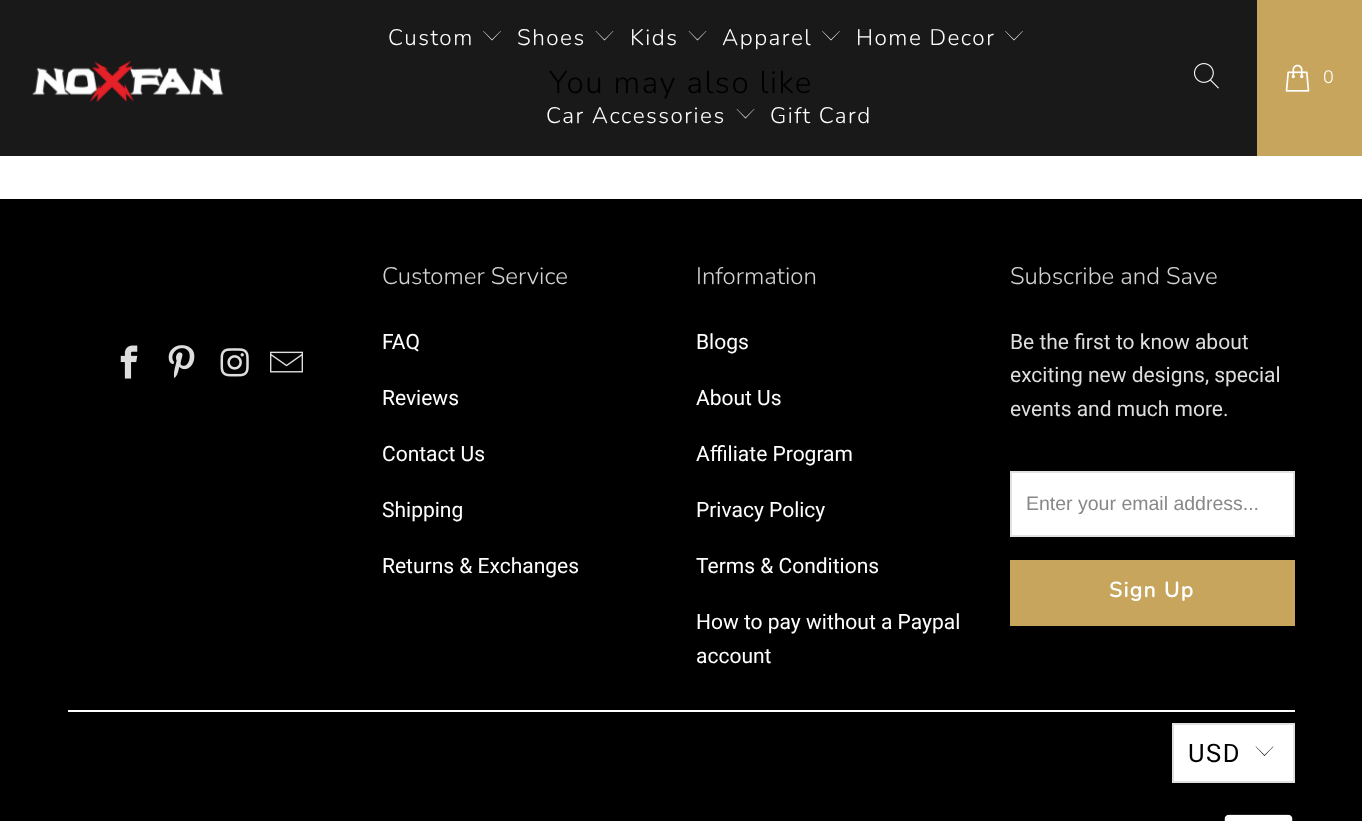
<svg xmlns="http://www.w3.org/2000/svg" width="1362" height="821">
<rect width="100%" height="100%" fill="#fff"/>
<rect width="1257" height="156" fill="#191919"/>
<image x="32" y="60" width="192" height="43" href="media/1.png"/>
<text x="388" y="45" style="font-family:Nunito;font-size:22.5px;font-weight:300;letter-spacing:1.5px;fill:#fff">Custom</text>
<path d="M492 40.5l-9-9.5h.5l8.5 8.5l8.5-8.5h.5z" fill="#fff"/>
<text x="517" y="45" style="font-family:Nunito;font-size:22.5px;font-weight:300;letter-spacing:1.5px;fill:#fff">Shoes</text>
<path d="M604.5 40.5l-9-9.5h.5l8.5 8.5l8.5-8.5h.5z" fill="#fff"/>
<text x="630" y="45" style="font-family:Nunito;font-size:22.5px;font-weight:300;letter-spacing:1.5px;fill:#fff">Kids</text>
<path d="M697.5 40.5l-9-9.5h.5l8.5 8.5l8.5-8.5h.5z" fill="#fff"/>
<text x="722" y="45" style="font-family:Nunito;font-size:22.5px;font-weight:300;letter-spacing:1.5px;fill:#fff">Apparel</text>
<path d="M831 40.5l-9-9.5h.5l8.5 8.5l8.5-8.5h.5z" fill="#fff"/>
<text x="856" y="45" style="font-family:Nunito;font-size:22.5px;font-weight:300;letter-spacing:1.5px;fill:#fff">Home Decor</text>
<path d="M1014 40.5l-9-9.5h.5l8.5 8.5l8.5-8.5h.5z" fill="#fff"/>
<text x="546" y="123" style="font-family:Nunito;font-size:22.5px;font-weight:300;letter-spacing:1.5px;fill:#fff">Car Accessories</text>
<path d="M745.5 118.5l-9-9.5h.5l8.5 8.5l8.5-8.5h.5z" fill="#fff"/>
<text x="770" y="123" style="font-family:Nunito;font-size:22.5px;font-weight:300;letter-spacing:1.5px;fill:#fff">Gift Card</text>
<image x="1194" y="63" width="25" height="26" href="media/2.png"/>
<rect x="1257" width="105" height="156" fill="#c7a55d"/>
<image x="1285" y="64" width="25" height="28" href="media/3.png"/>
<text x="1323" y="83" style="font-family:Nunito;font-size:18px;font-weight:300;letter-spacing:1.5px;fill:#fff">0</text>
<text x="549" y="93" style="font-family:Nunito;font-size:31.5px;font-weight:300;letter-spacing:1.5px;fill:#000">You may also like</text>
<rect y="199" width="1362" height="622" fill="#000"/>
<image x="120" y="345" width="18" height="34" href="media/4.png"/>
<image x="168" y="345" width="27" height="33" href="media/5.png"/>
<image x="220" y="348" width="29" height="29" href="media/6.png"/>
<image x="270" y="351" width="33" height="22" href="media/7.png"/>
<text x="382" y="284" style="font-family:Nunito;font-size:24px;font-weight:300;fill:#d2d2d2">Customer Service</text>
<text x="382" y="349" style="font-family:Roboto;font-size:21px;fill:#fff">FAQ</text>
<text x="382" y="405" style="font-family:Roboto;font-size:21px;fill:#fff">Reviews</text>
<text x="382" y="461" style="font-family:Roboto;font-size:21px;fill:#fff">Contact Us</text>
<text x="382" y="517" style="font-family:Roboto;font-size:21px;fill:#fff">Shipping</text>
<text x="382" y="573" style="font-family:Roboto;font-size:21px;fill:#fff">Returns &amp; Exchanges</text>
<text x="696" y="284" style="font-family:Nunito;font-size:24px;font-weight:300;fill:#d2d2d2">Information</text>
<text x="696" y="349" style="font-family:Roboto;font-size:21px;fill:#fff">Blogs</text>
<text x="696" y="405" style="font-family:Roboto;font-size:21px;fill:#fff">About Us</text>
<text x="696" y="461" style="font-family:Roboto;font-size:21px;fill:#fff">Affiliate Program</text>
<text x="696" y="517" style="font-family:Roboto;font-size:21px;fill:#fff">Privacy Policy</text>
<text x="696" y="573" style="font-family:Roboto;font-size:21px;fill:#fff">Terms &amp; Conditions</text>
<text x="696" y="629" style="font-family:Roboto;font-size:21px;fill:#fff">How to pay without a Paypal</text>
<text x="696" y="663" style="font-family:Roboto;font-size:21px;fill:#fff">account</text>
<text x="1010" y="284" style="font-family:Nunito;font-size:24px;font-weight:300;fill:#d2d2d2">Subscribe and Save</text>
<text x="1010" y="349" style="font-family:Roboto;font-size:21px;fill:#dedede">Be the first to know about</text>
<text x="1010" y="382" style="font-family:Roboto;font-size:21px;fill:#dedede">exciting new designs, special</text>
<text x="1010" y="416" style="font-family:Roboto;font-size:21px;fill:#dedede">events and much more.</text>
<rect x="1011" y="472" width="283" height="64" fill="#fff" stroke="#e1e1e1" stroke-width="2"/>
<text x="1026" y="510" style="font-family:Liberation Sans;font-size:19.5px;fill:#888">Enter your email address...</text>
<rect x="1010" y="560" width="285" height="66" fill="#c7a55d"/>
<text x="1109" y="597" style="font-family:Nunito;font-size:21px;font-weight:bold;letter-spacing:1.5px;fill:#fff">Sign Up</text>
<rect x="68" y="710" width="1227" height="2" fill="#fff"/>
<rect x="1173" y="724" width="121" height="58" fill="#fff" stroke="#e1e1e1" stroke-width="2"/>
<text x="1188" y="762" style="font-family:Roboto;font-size:25.5px;letter-spacing:1.5px;fill:#000">USD</text>
<path d="M1264.5 756l-9-9.5h.5l8.5 8.5l8.5-8.5h.5z" fill="#000"/>
<image x="1224" y="814" width="69" height="7" href="media/8.png"/>
</svg>
